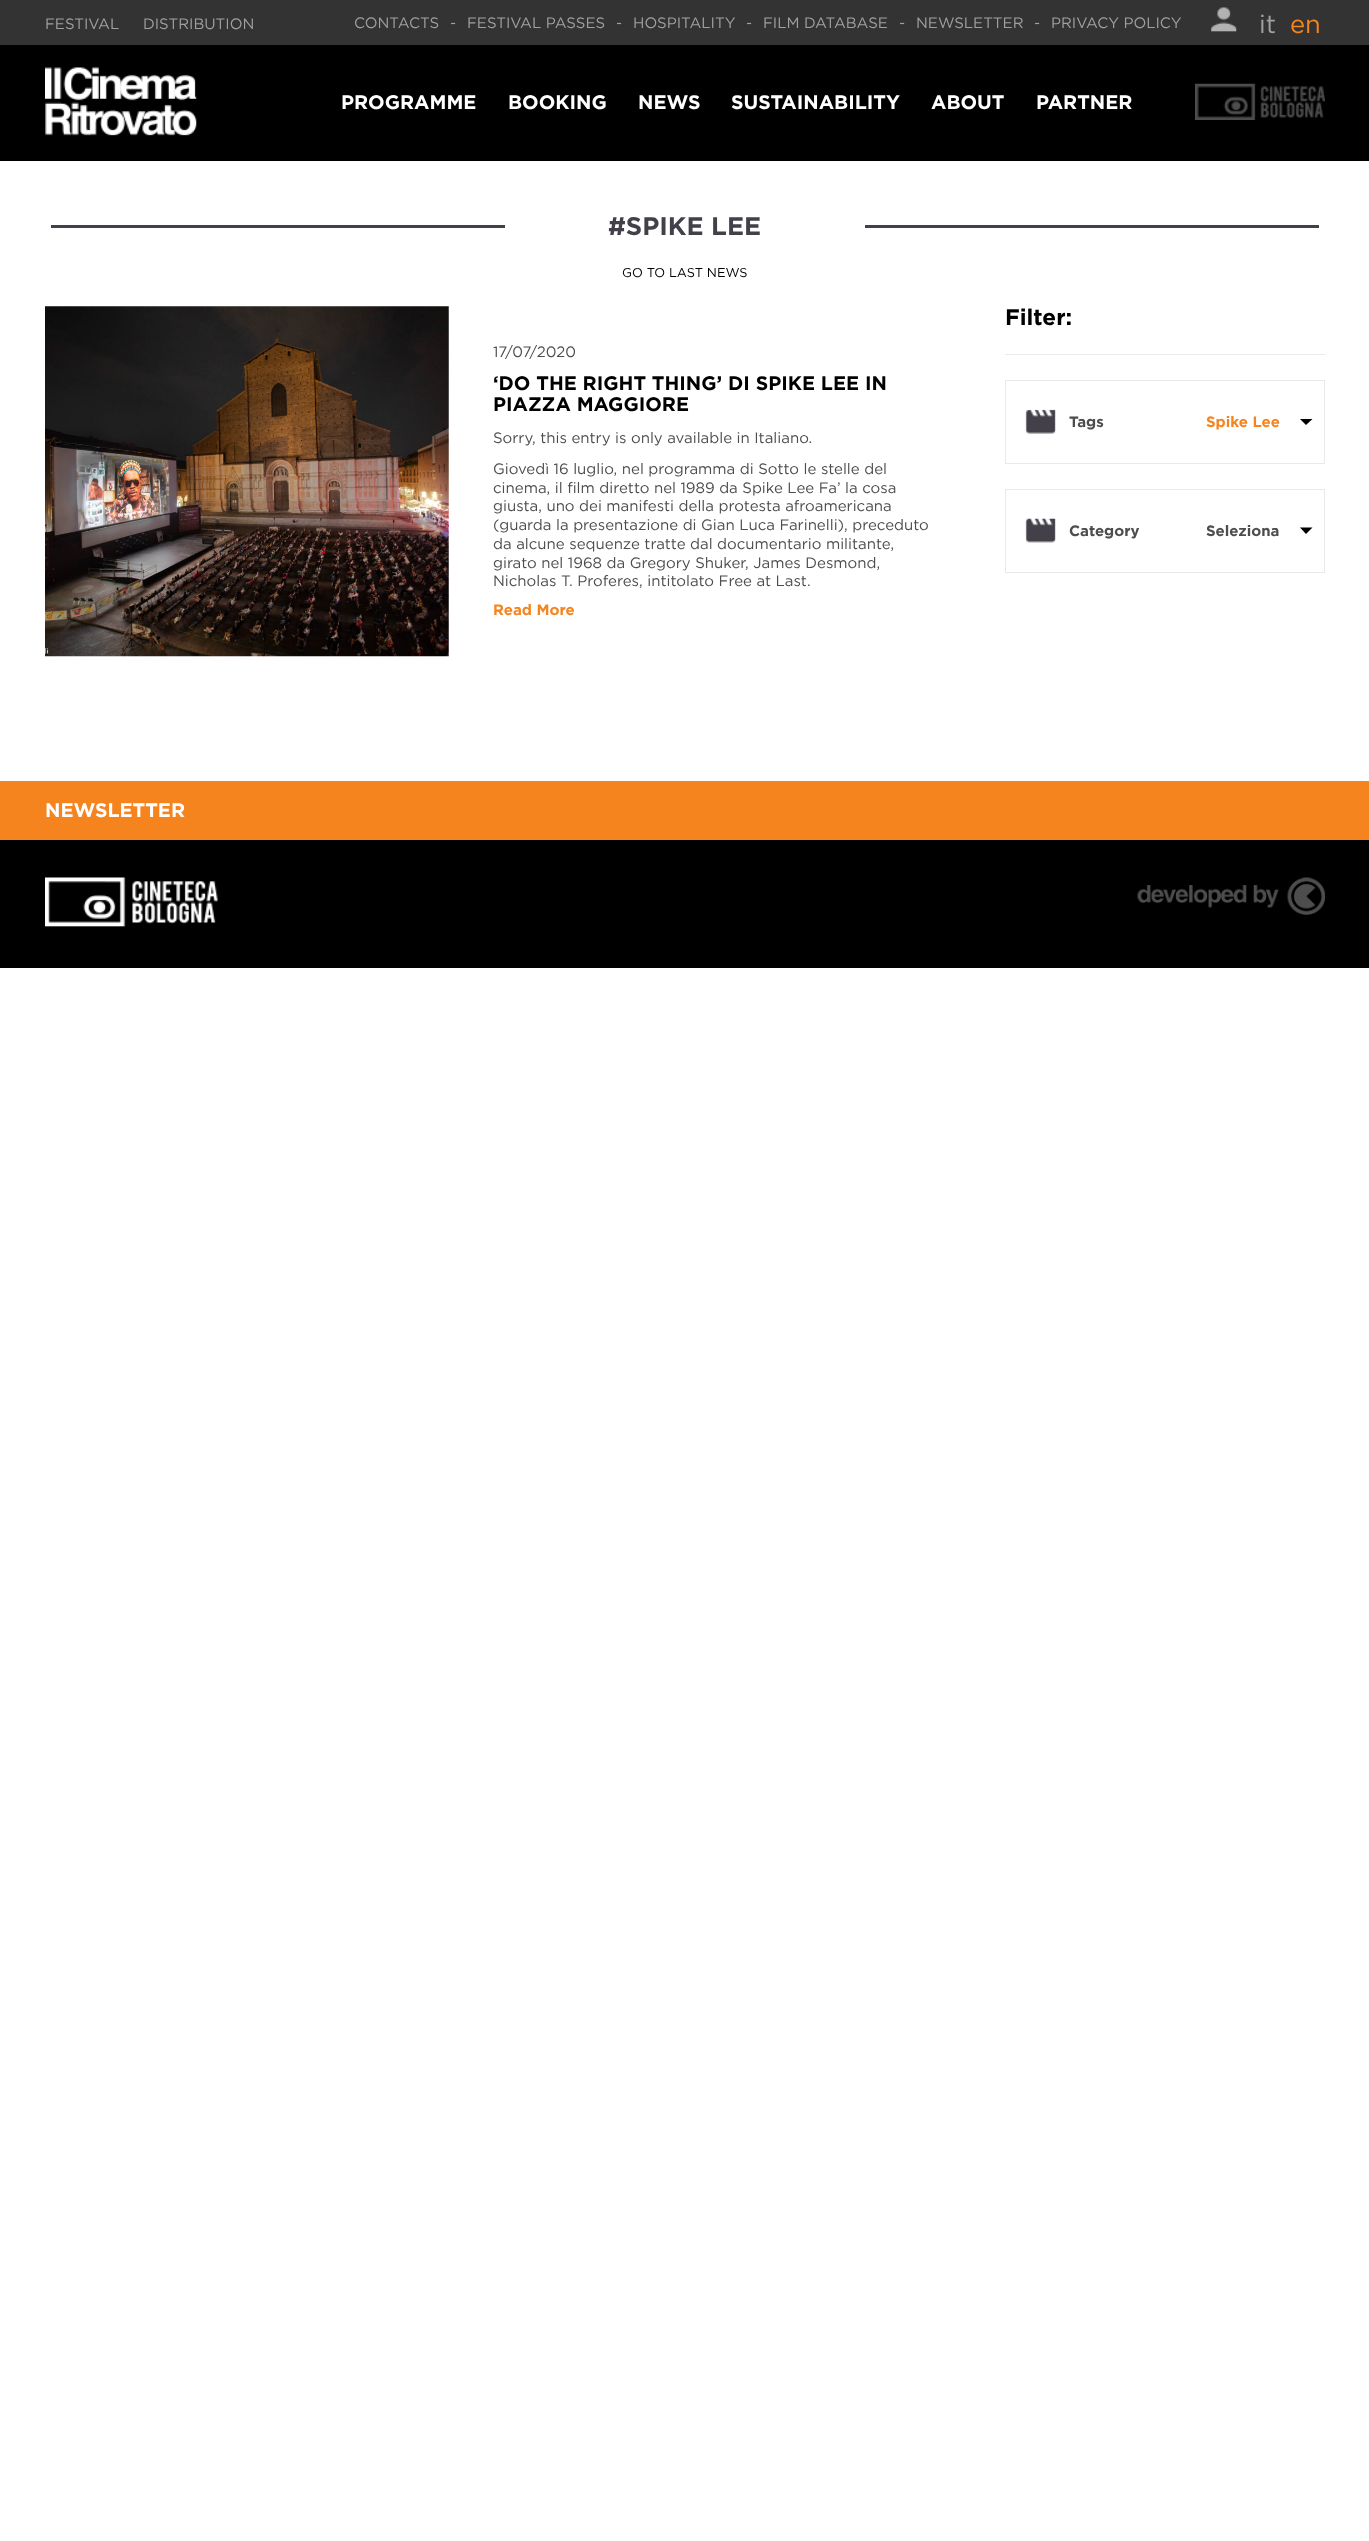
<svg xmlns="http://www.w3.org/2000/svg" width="1369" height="2541">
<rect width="100%" height="100%" fill="#fff"/>
<rect width="1369" height="45" fill="#333"/>
<text x="45" y="29" style="font-family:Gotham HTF;font-size:15px;fill:#a0a0a0">FESTIVAL</text>
<text x="143" y="29" style="font-family:Gotham HTF;font-size:15px;fill:#a0a0a0">DISTRIBUTION</text>
<text x="354" y="28" style="font-family:Gotham HTF;font-size:15px;fill:#a0a0a0">CONTACTS</text>
<text x="450" y="28" style="font-family:Gotham HTF;font-size:15px;fill:#a0a0a0">-</text>
<text x="467" y="28" style="font-family:Gotham HTF;font-size:15px;fill:#a0a0a0">FESTIVAL PASSES</text>
<text x="616" y="28" style="font-family:Gotham HTF;font-size:15px;fill:#a0a0a0">-</text>
<text x="633" y="28" style="font-family:Gotham HTF;font-size:15px;fill:#a0a0a0">HOSPITALITY</text>
<text x="746" y="28" style="font-family:Gotham HTF;font-size:15px;fill:#a0a0a0">-</text>
<text x="763" y="28" style="font-family:Gotham HTF;font-size:15px;fill:#a0a0a0">FILM DATABASE</text>
<text x="899" y="28" style="font-family:Gotham HTF;font-size:15px;fill:#a0a0a0">-</text>
<text x="916" y="28" style="font-family:Gotham HTF;font-size:15px;fill:#a0a0a0">NEWSLETTER</text>
<text x="1034" y="28" style="font-family:Gotham HTF;font-size:15px;fill:#a0a0a0">-</text>
<text x="1051" y="28" style="font-family:Gotham HTF;font-size:15px;fill:#a0a0a0">PRIVACY POLICY</text>
<image x="1211" y="7" width="26" height="25" href="media/1.png"/>
<text x="1259" y="33" style="font-family:Gotham HTF;font-size:25.5px;fill:#a0a0a0">it</text>
<text x="1290" y="33" style="font-family:Gotham HTF;font-size:25.5px;fill:#f6841e">en</text>
<rect y="45" width="1369" height="116" fill="#000"/>
<image x="45" y="67" width="152" height="69" href="media/2.png"/>
<text x="341" y="109" style="font-family:Gotham;font-size:19.5px;font-weight:bold;fill:#fff">PROGRAMME</text>
<text x="508" y="109" style="font-family:Gotham;font-size:19.5px;font-weight:bold;fill:#fff">BOOKING</text>
<text x="638" y="109" style="font-family:Gotham;font-size:19.5px;font-weight:bold;fill:#fff">NEWS</text>
<text x="731" y="109" style="font-family:Gotham;font-size:19.5px;font-weight:bold;fill:#fff">SUSTAINABILITY</text>
<text x="931" y="109" style="font-family:Gotham;font-size:19.5px;font-weight:bold;fill:#fff">ABOUT</text>
<text x="1036" y="109" style="font-family:Gotham;font-size:19.5px;font-weight:bold;fill:#fff">PARTNER</text>
<image x="1195" y="83" width="130" height="37" href="media/3.png"/>
<rect x="51" y="225" width="454" height="3" fill="#434049"/>
<text x="608" y="235" style="font-family:Gotham;font-size:25.5px;font-weight:bold;fill:#434049">#SPIKE LEE</text>
<rect x="865" y="225" width="454" height="3" fill="#434049"/>
<text x="622" y="277" style="font-family:Gotham HTF;font-size:12.75px;fill:#000">GO TO LAST NEWS</text>
<image x="45" y="306" width="404" height="351" href="media/4.png"/>
<text x="493" y="357" style="font-family:Gotham HTF;font-size:15px;fill:#4d4d4d">17/07/2020</text>
<text x="493" y="390" style="font-family:Gotham;font-size:19.5px;font-weight:bold;fill:#000">‘DO THE RIGHT THING’ DI SPIKE LEE IN</text>
<text x="493" y="411" style="font-family:Gotham;font-size:19.5px;font-weight:bold;fill:#000">PIAZZA MAGGIORE</text>
<text x="493" y="443" style="font-family:Gotham HTF;font-size:15px;fill:#4d4d4d">Sorry, this entry is only available in Italiano.</text>
<text x="493" y="474" style="font-family:Gotham HTF;font-size:15px;fill:#4d4d4d">Giovedì 16 luglio, nel programma di Sotto le stelle del</text>
<text x="493" y="493" style="font-family:Gotham HTF;font-size:15px;fill:#4d4d4d">cinema, il film diretto nel 1989 da Spike Lee Fa’ la cosa</text>
<text x="493" y="511" style="font-family:Gotham HTF;font-size:15px;fill:#4d4d4d">giusta, uno dei manifesti della protesta afroamericana</text>
<text x="493" y="530" style="font-family:Gotham HTF;font-size:15px;fill:#4d4d4d">(guarda la presentazione di Gian Luca Farinelli), preceduto</text>
<text x="493" y="549" style="font-family:Gotham HTF;font-size:15px;fill:#4d4d4d">da alcune sequenze tratte dal documentario militante,</text>
<text x="493" y="568" style="font-family:Gotham HTF;font-size:15px;fill:#4d4d4d">girato nel 1968 da Gregory Shuker, James Desmond,</text>
<text x="493" y="586" style="font-family:Gotham HTF;font-size:15px;fill:#4d4d4d">Nicholas T. Proferes, intitolato Free at Last.</text>
<text x="493" y="615" style="font-family:Gotham;font-size:15px;font-weight:bold;fill:#f6841e">Read More</text>
<rect x="1005" y="354" width="320" height="1" fill="#e6eaea"/>
<text x="1005" y="325" style="font-family:Gotham;font-size:22.5px;font-weight:bold;fill:#000">Filter:</text>
<rect x="1005.5" y="380.5" width="319" height="83" fill="none" stroke="#e6eaea"/>
<image x="1025" y="409" width="31" height="25" href="media/5.png"/>
<text x="1069" y="427" style="font-family:Gotham;font-size:15px;font-weight:bold;fill:#4d4d4d">Tags</text>
<text x="1206" y="427" style="font-family:Gotham;font-size:15px;font-weight:bold;fill:#f6841e">Spike Lee</text>
<path d="M1300 419h12.5l-6.5 6z" fill="#000"/>
<rect x="1005.5" y="489.5" width="319" height="83" fill="none" stroke="#e6eaea"/>
<image x="1025" y="518" width="31" height="25" href="media/6.png"/>
<text x="1069" y="536" style="font-family:Gotham;font-size:15px;font-weight:bold;fill:#4d4d4d">Category</text>
<text x="1206" y="536" style="font-family:Gotham;font-size:15px;font-weight:bold;fill:#4d4d4d">Seleziona</text>
<path d="M1300 527.5h12.5l-6.5 6.5z" fill="#000"/>
<rect y="781" width="1369" height="59" fill="#f6841e"/>
<text x="45" y="817" style="font-family:Gotham;font-size:19.5px;font-weight:bold;fill:#fff">NEWSLETTER</text>
<rect y="840" width="1369" height="128" fill="#000"/>
<image x="45" y="877" width="173" height="50" href="media/7.png"/>
<image x="1137" y="877" width="188" height="38" href="media/8.png"/>
</svg>
